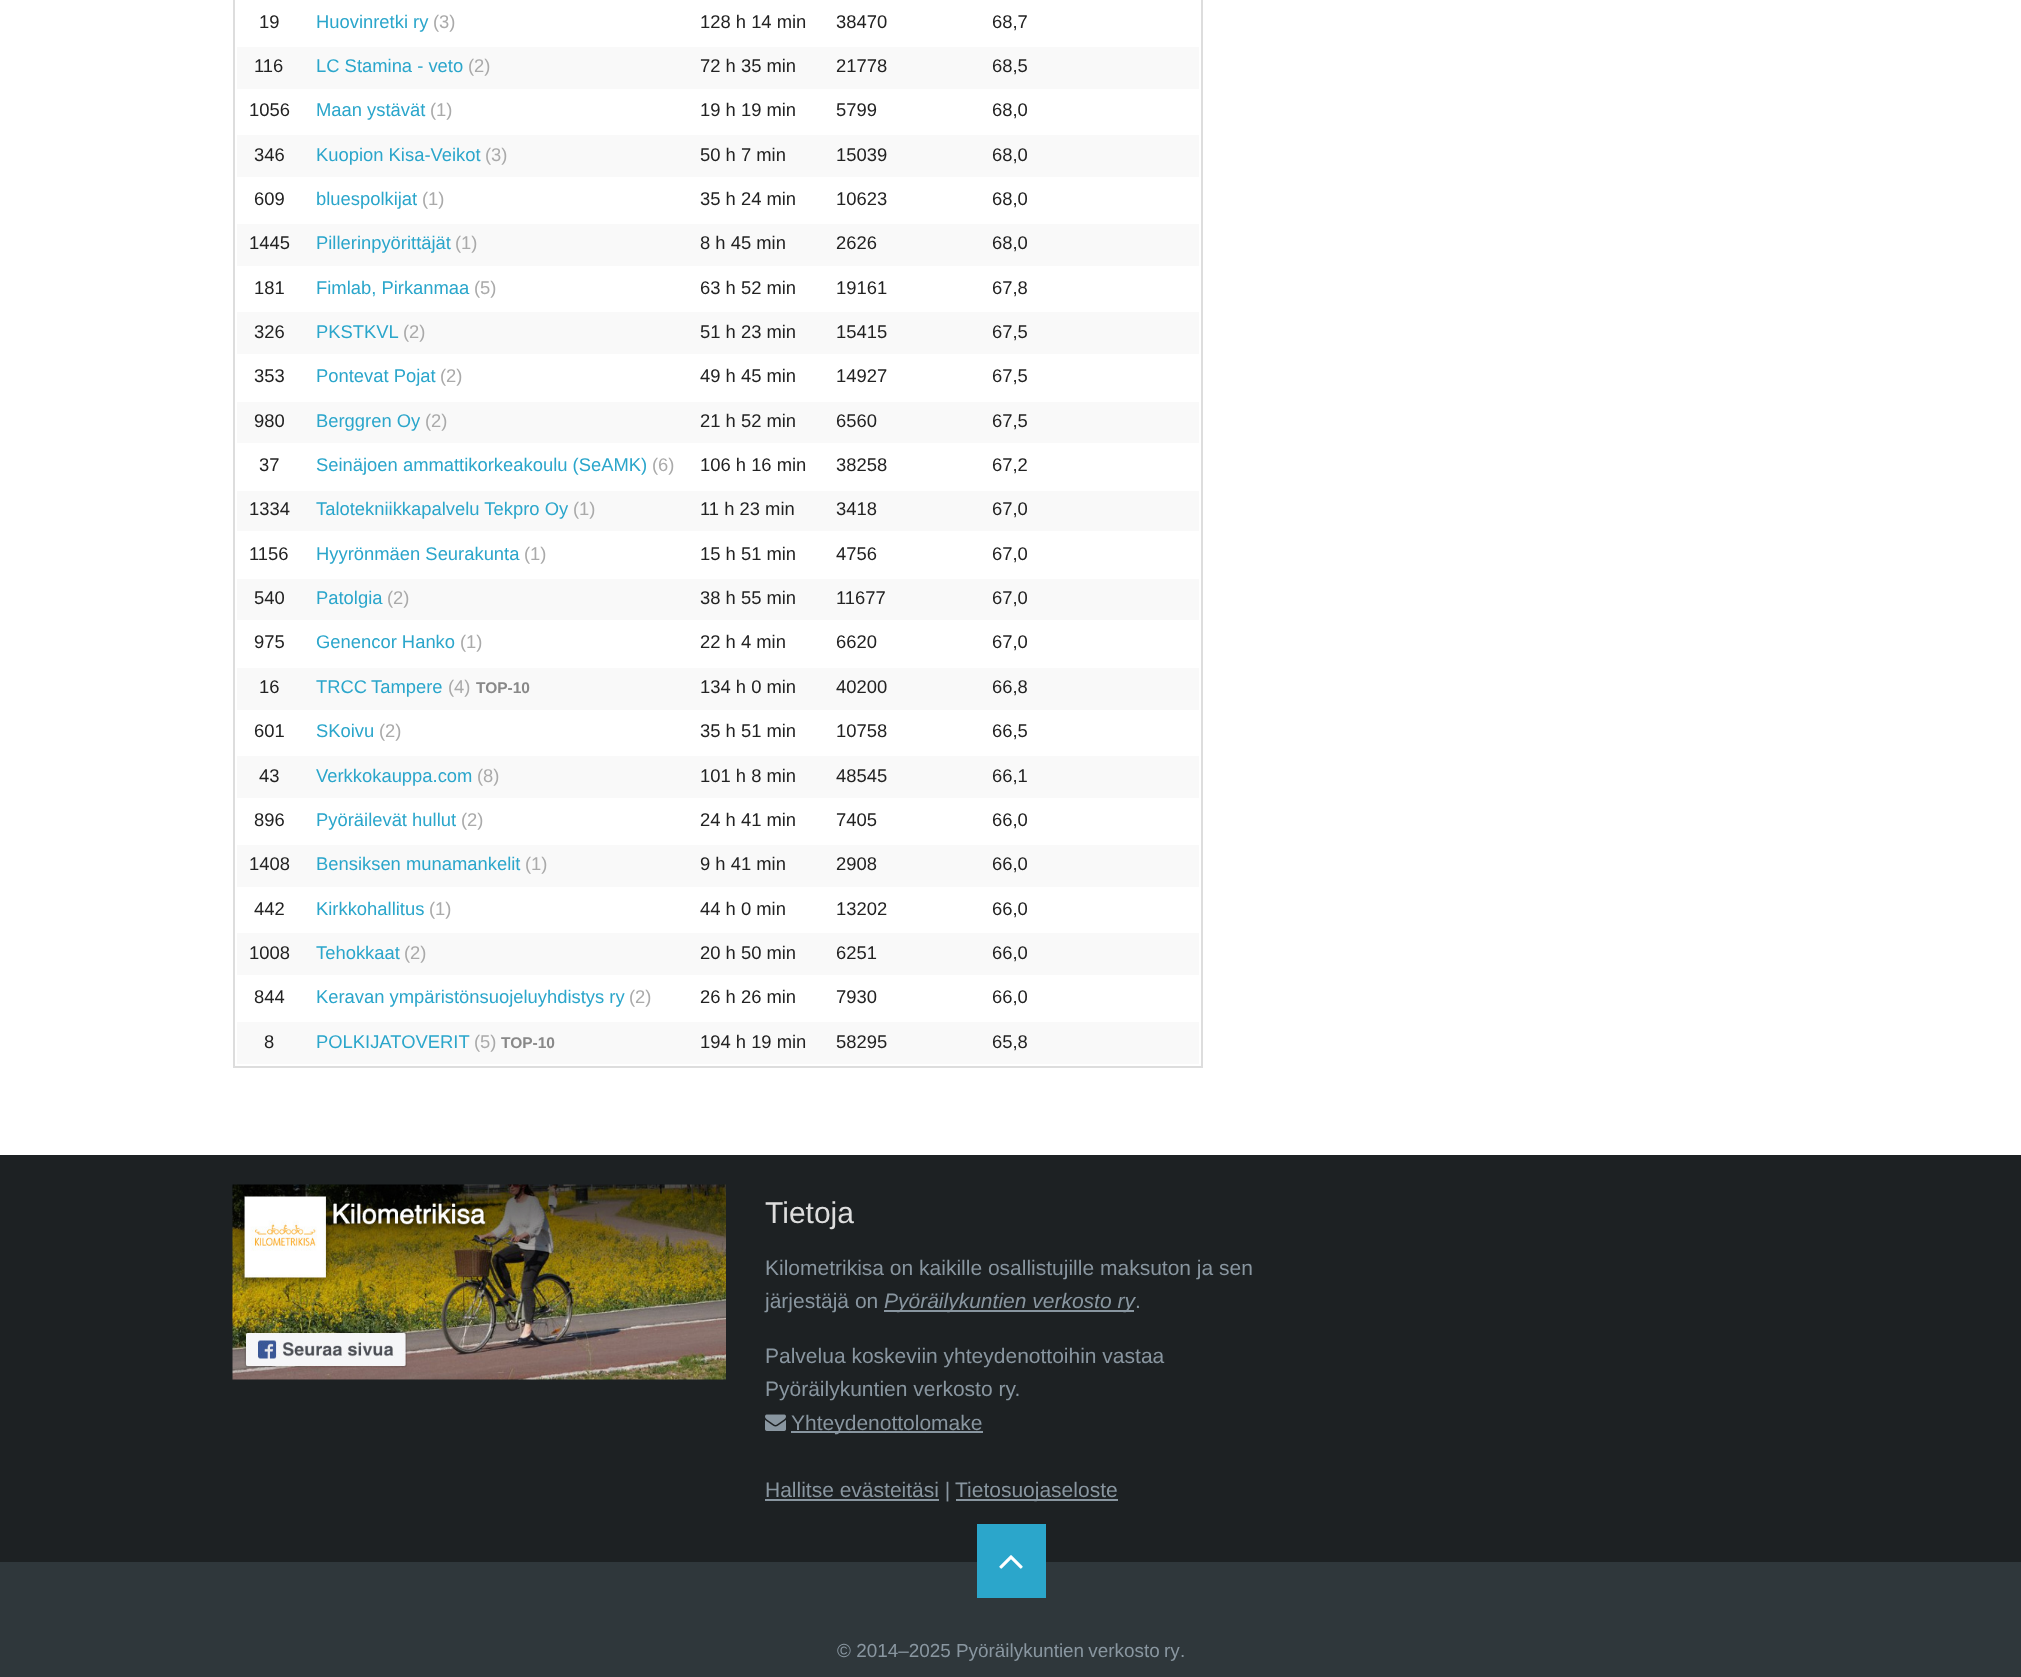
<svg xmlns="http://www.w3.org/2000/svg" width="2021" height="1677">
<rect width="100%" height="100%" fill="#fff"/>
<rect x="234" y="-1" width="968" height="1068" fill="none" stroke="#ddd" stroke-width="2"/>
<text x="259" y="28" style="font-family:Liberation Sans;font-size:18.4px;fill:#222">19</text>
<text x="316" y="28" style="font-family:Liberation Sans;font-size:18.4px;fill:#2ba6cb">Huovinretki ry</text>
<text x="433" y="28" style="font-family:Liberation Sans;font-size:18.4px;fill:#aaa">(3)</text>
<text x="700" y="28" style="font-family:Liberation Sans;font-size:18.4px;fill:#222">128 h 14 min</text>
<text x="836" y="28" style="font-family:Liberation Sans;font-size:18.4px;fill:#222">38470</text>
<text x="992" y="28" style="font-family:Liberation Sans;font-size:18.4px;fill:#222">68,7</text>
<rect x="237" y="47" width="962" height="42" fill="#f9f9f9"/>
<text x="254" y="72" style="font-family:Liberation Sans;font-size:18.4px;fill:#222">116</text>
<text x="316" y="72" style="font-family:Liberation Sans;font-size:18.4px;fill:#2ba6cb">LC Stamina - veto</text>
<text x="468" y="72" style="font-family:Liberation Sans;font-size:18.4px;fill:#aaa">(2)</text>
<text x="700" y="72" style="font-family:Liberation Sans;font-size:18.4px;fill:#222">72 h 35 min</text>
<text x="836" y="72" style="font-family:Liberation Sans;font-size:18.4px;fill:#222">21778</text>
<text x="992" y="72" style="font-family:Liberation Sans;font-size:18.4px;fill:#222">68,5</text>
<text x="249" y="116" style="font-family:Liberation Sans;font-size:18.4px;fill:#222">1056</text>
<text x="316" y="116" style="font-family:Liberation Sans;font-size:18.4px;fill:#2ba6cb">Maan ystävät</text>
<text x="430" y="116" style="font-family:Liberation Sans;font-size:18.4px;fill:#aaa">(1)</text>
<text x="700" y="116" style="font-family:Liberation Sans;font-size:18.4px;fill:#222">19 h 19 min</text>
<text x="836" y="116" style="font-family:Liberation Sans;font-size:18.4px;fill:#222">5799</text>
<text x="992" y="116" style="font-family:Liberation Sans;font-size:18.4px;fill:#222">68,0</text>
<rect x="237" y="135" width="962" height="42" fill="#f9f9f9"/>
<text x="254" y="161" style="font-family:Liberation Sans;font-size:18.4px;fill:#222">346</text>
<text x="316" y="161" style="font-family:Liberation Sans;font-size:18.4px;fill:#2ba6cb">Kuopion Kisa-Veikot</text>
<text x="485" y="161" style="font-family:Liberation Sans;font-size:18.4px;fill:#aaa">(3)</text>
<text x="700" y="161" style="font-family:Liberation Sans;font-size:18.4px;fill:#222">50 h 7 min</text>
<text x="836" y="161" style="font-family:Liberation Sans;font-size:18.4px;fill:#222">15039</text>
<text x="992" y="161" style="font-family:Liberation Sans;font-size:18.4px;fill:#222">68,0</text>
<text x="254" y="205" style="font-family:Liberation Sans;font-size:18.4px;fill:#222">609</text>
<text x="316" y="205" style="font-family:Liberation Sans;font-size:18.4px;fill:#2ba6cb">bluespolkijat</text>
<text x="422" y="205" style="font-family:Liberation Sans;font-size:18.4px;fill:#aaa">(1)</text>
<text x="700" y="205" style="font-family:Liberation Sans;font-size:18.4px;fill:#222">35 h 24 min</text>
<text x="836" y="205" style="font-family:Liberation Sans;font-size:18.4px;fill:#222">10623</text>
<text x="992" y="205" style="font-family:Liberation Sans;font-size:18.4px;fill:#222">68,0</text>
<rect x="237" y="224" width="962" height="42" fill="#f9f9f9"/>
<text x="249" y="249" style="font-family:Liberation Sans;font-size:18.4px;fill:#222">1445</text>
<text x="316" y="249" style="font-family:Liberation Sans;font-size:18.4px;fill:#2ba6cb">Pillerinpyörittäjät</text>
<text x="455" y="249" style="font-family:Liberation Sans;font-size:18.4px;fill:#aaa">(1)</text>
<text x="700" y="249" style="font-family:Liberation Sans;font-size:18.4px;fill:#222">8 h 45 min</text>
<text x="836" y="249" style="font-family:Liberation Sans;font-size:18.4px;fill:#222">2626</text>
<text x="992" y="249" style="font-family:Liberation Sans;font-size:18.4px;fill:#222">68,0</text>
<text x="254" y="294" style="font-family:Liberation Sans;font-size:18.4px;fill:#222">181</text>
<text x="316" y="294" style="font-family:Liberation Sans;font-size:18.4px;fill:#2ba6cb">Fimlab, Pirkanmaa</text>
<text x="474" y="294" style="font-family:Liberation Sans;font-size:18.4px;fill:#aaa">(5)</text>
<text x="700" y="294" style="font-family:Liberation Sans;font-size:18.4px;fill:#222">63 h 52 min</text>
<text x="836" y="294" style="font-family:Liberation Sans;font-size:18.4px;fill:#222">19161</text>
<text x="992" y="294" style="font-family:Liberation Sans;font-size:18.4px;fill:#222">67,8</text>
<rect x="237" y="312" width="962" height="42" fill="#f9f9f9"/>
<text x="254" y="338" style="font-family:Liberation Sans;font-size:18.4px;fill:#222">326</text>
<text x="316" y="338" style="font-family:Liberation Sans;font-size:18.4px;fill:#2ba6cb">PKSTKVL</text>
<text x="403" y="338" style="font-family:Liberation Sans;font-size:18.4px;fill:#aaa">(2)</text>
<text x="700" y="338" style="font-family:Liberation Sans;font-size:18.4px;fill:#222">51 h 23 min</text>
<text x="836" y="338" style="font-family:Liberation Sans;font-size:18.4px;fill:#222">15415</text>
<text x="992" y="338" style="font-family:Liberation Sans;font-size:18.4px;fill:#222">67,5</text>
<text x="254" y="382" style="font-family:Liberation Sans;font-size:18.4px;fill:#222">353</text>
<text x="316" y="382" style="font-family:Liberation Sans;font-size:18.4px;fill:#2ba6cb">Pontevat Pojat</text>
<text x="440" y="382" style="font-family:Liberation Sans;font-size:18.4px;fill:#aaa">(2)</text>
<text x="700" y="382" style="font-family:Liberation Sans;font-size:18.4px;fill:#222">49 h 45 min</text>
<text x="836" y="382" style="font-family:Liberation Sans;font-size:18.4px;fill:#222">14927</text>
<text x="992" y="382" style="font-family:Liberation Sans;font-size:18.4px;fill:#222">67,5</text>
<rect x="237" y="402" width="962" height="41" fill="#f9f9f9"/>
<text x="254" y="427" style="font-family:Liberation Sans;font-size:18.4px;fill:#222">980</text>
<text x="316" y="427" style="font-family:Liberation Sans;font-size:18.4px;fill:#2ba6cb">Berggren Oy</text>
<text x="425" y="427" style="font-family:Liberation Sans;font-size:18.4px;fill:#aaa">(2)</text>
<text x="700" y="427" style="font-family:Liberation Sans;font-size:18.4px;fill:#222">21 h 52 min</text>
<text x="836" y="427" style="font-family:Liberation Sans;font-size:18.4px;fill:#222">6560</text>
<text x="992" y="427" style="font-family:Liberation Sans;font-size:18.4px;fill:#222">67,5</text>
<text x="259" y="471" style="font-family:Liberation Sans;font-size:18.4px;fill:#222">37</text>
<text x="316" y="471" style="font-family:Liberation Sans;font-size:18.4px;fill:#2ba6cb">Seinäjoen ammattikorkeakoulu (SeAMK)</text>
<text x="652" y="471" style="font-family:Liberation Sans;font-size:18.4px;fill:#aaa">(6)</text>
<text x="700" y="471" style="font-family:Liberation Sans;font-size:18.4px;fill:#222">106 h 16 min</text>
<text x="836" y="471" style="font-family:Liberation Sans;font-size:18.4px;fill:#222">38258</text>
<text x="992" y="471" style="font-family:Liberation Sans;font-size:18.4px;fill:#222">67,2</text>
<rect x="237" y="491" width="962" height="40" fill="#f9f9f9"/>
<text x="249" y="515" style="font-family:Liberation Sans;font-size:18.4px;fill:#222">1334</text>
<text x="316" y="515" style="font-family:Liberation Sans;font-size:18.4px;fill:#2ba6cb">Talotekniikkapalvelu Tekpro Oy</text>
<text x="573" y="515" style="font-family:Liberation Sans;font-size:18.4px;fill:#aaa">(1)</text>
<text x="700" y="515" style="font-family:Liberation Sans;font-size:18.4px;fill:#222">11 h 23 min</text>
<text x="836" y="515" style="font-family:Liberation Sans;font-size:18.4px;fill:#222">3418</text>
<text x="992" y="515" style="font-family:Liberation Sans;font-size:18.4px;fill:#222">67,0</text>
<text x="249" y="560" style="font-family:Liberation Sans;font-size:18.4px;fill:#222">1156</text>
<text x="316" y="560" style="font-family:Liberation Sans;font-size:18.4px;fill:#2ba6cb">Hyyrönmäen Seurakunta</text>
<text x="524" y="560" style="font-family:Liberation Sans;font-size:18.4px;fill:#aaa">(1)</text>
<text x="700" y="560" style="font-family:Liberation Sans;font-size:18.4px;fill:#222">15 h 51 min</text>
<text x="836" y="560" style="font-family:Liberation Sans;font-size:18.4px;fill:#222">4756</text>
<text x="992" y="560" style="font-family:Liberation Sans;font-size:18.4px;fill:#222">67,0</text>
<rect x="237" y="579" width="962" height="41" fill="#f9f9f9"/>
<text x="254" y="604" style="font-family:Liberation Sans;font-size:18.4px;fill:#222">540</text>
<text x="316" y="604" style="font-family:Liberation Sans;font-size:18.4px;fill:#2ba6cb">Patolgia</text>
<text x="387" y="604" style="font-family:Liberation Sans;font-size:18.4px;fill:#aaa">(2)</text>
<text x="700" y="604" style="font-family:Liberation Sans;font-size:18.4px;fill:#222">38 h 55 min</text>
<text x="836" y="604" style="font-family:Liberation Sans;font-size:18.4px;fill:#222">11677</text>
<text x="992" y="604" style="font-family:Liberation Sans;font-size:18.4px;fill:#222">67,0</text>
<text x="254" y="648" style="font-family:Liberation Sans;font-size:18.4px;fill:#222">975</text>
<text x="316" y="648" style="font-family:Liberation Sans;font-size:18.4px;fill:#2ba6cb">Genencor Hanko</text>
<text x="460" y="648" style="font-family:Liberation Sans;font-size:18.4px;fill:#aaa">(1)</text>
<text x="700" y="648" style="font-family:Liberation Sans;font-size:18.4px;fill:#222">22 h 4 min</text>
<text x="836" y="648" style="font-family:Liberation Sans;font-size:18.4px;fill:#222">6620</text>
<text x="992" y="648" style="font-family:Liberation Sans;font-size:18.4px;fill:#222">67,0</text>
<rect x="237" y="668" width="962" height="42" fill="#f9f9f9"/>
<text x="259" y="693" style="font-family:Liberation Sans;font-size:18.4px;fill:#222">16</text>
<text x="316" y="693" style="font-family:Liberation Sans;font-size:18.4px;fill:#2ba6cb">TRCC</text>
<text x="371" y="693" style="font-family:Liberation Sans;font-size:18.4px;fill:#2ba6cb">Tampere</text>
<text x="448" y="693" style="font-family:Liberation Sans;font-size:18.4px;fill:#aaa">(4)</text>
<text x="476" y="693" style="font-family:Liberation Sans;font-size:15.5px;font-weight:bold;fill:#888">TOP-10</text>
<text x="700" y="693" style="font-family:Liberation Sans;font-size:18.4px;fill:#222">134 h 0 min</text>
<text x="836" y="693" style="font-family:Liberation Sans;font-size:18.4px;fill:#222">40200</text>
<text x="992" y="693" style="font-family:Liberation Sans;font-size:18.4px;fill:#222">66,8</text>
<text x="254" y="737" style="font-family:Liberation Sans;font-size:18.4px;fill:#222">601</text>
<text x="316" y="737" style="font-family:Liberation Sans;font-size:18.4px;fill:#2ba6cb">SKoivu</text>
<text x="379" y="737" style="font-family:Liberation Sans;font-size:18.4px;fill:#aaa">(2)</text>
<text x="700" y="737" style="font-family:Liberation Sans;font-size:18.4px;fill:#222">35 h 51 min</text>
<text x="836" y="737" style="font-family:Liberation Sans;font-size:18.4px;fill:#222">10758</text>
<text x="992" y="737" style="font-family:Liberation Sans;font-size:18.4px;fill:#222">66,5</text>
<rect x="237" y="756" width="962" height="42" fill="#f9f9f9"/>
<text x="259" y="782" style="font-family:Liberation Sans;font-size:18.4px;fill:#222">43</text>
<text x="316" y="782" style="font-family:Liberation Sans;font-size:18.4px;fill:#2ba6cb">Verkkokauppa.com</text>
<text x="477" y="782" style="font-family:Liberation Sans;font-size:18.4px;fill:#aaa">(8)</text>
<text x="700" y="782" style="font-family:Liberation Sans;font-size:18.4px;fill:#222">101 h 8 min</text>
<text x="836" y="782" style="font-family:Liberation Sans;font-size:18.4px;fill:#222">48545</text>
<text x="992" y="782" style="font-family:Liberation Sans;font-size:18.4px;fill:#222">66,1</text>
<text x="254" y="826" style="font-family:Liberation Sans;font-size:18.4px;fill:#222">896</text>
<text x="316" y="826" style="font-family:Liberation Sans;font-size:18.4px;fill:#2ba6cb">Pyöräilevät hullut</text>
<text x="461" y="826" style="font-family:Liberation Sans;font-size:18.4px;fill:#aaa">(2)</text>
<text x="700" y="826" style="font-family:Liberation Sans;font-size:18.4px;fill:#222">24 h 41 min</text>
<text x="836" y="826" style="font-family:Liberation Sans;font-size:18.4px;fill:#222">7405</text>
<text x="992" y="826" style="font-family:Liberation Sans;font-size:18.4px;fill:#222">66,0</text>
<rect x="237" y="845" width="962" height="42" fill="#f9f9f9"/>
<text x="249" y="870" style="font-family:Liberation Sans;font-size:18.4px;fill:#222">1408</text>
<text x="316" y="870" style="font-family:Liberation Sans;font-size:18.4px;fill:#2ba6cb">Bensiksen munamankelit</text>
<text x="525" y="870" style="font-family:Liberation Sans;font-size:18.4px;fill:#aaa">(1)</text>
<text x="700" y="870" style="font-family:Liberation Sans;font-size:18.4px;fill:#222">9 h 41 min</text>
<text x="836" y="870" style="font-family:Liberation Sans;font-size:18.4px;fill:#222">2908</text>
<text x="992" y="870" style="font-family:Liberation Sans;font-size:18.4px;fill:#222">66,0</text>
<text x="254" y="915" style="font-family:Liberation Sans;font-size:18.4px;fill:#222">442</text>
<text x="316" y="915" style="font-family:Liberation Sans;font-size:18.4px;fill:#2ba6cb">Kirkkohallitus</text>
<text x="429" y="915" style="font-family:Liberation Sans;font-size:18.4px;fill:#aaa">(1)</text>
<text x="700" y="915" style="font-family:Liberation Sans;font-size:18.4px;fill:#222">44 h 0 min</text>
<text x="836" y="915" style="font-family:Liberation Sans;font-size:18.4px;fill:#222">13202</text>
<text x="992" y="915" style="font-family:Liberation Sans;font-size:18.4px;fill:#222">66,0</text>
<rect x="237" y="933" width="962" height="42" fill="#f9f9f9"/>
<text x="249" y="959" style="font-family:Liberation Sans;font-size:18.4px;fill:#222">1008</text>
<text x="316" y="959" style="font-family:Liberation Sans;font-size:18.4px;fill:#2ba6cb">Tehokkaat</text>
<text x="404" y="959" style="font-family:Liberation Sans;font-size:18.4px;fill:#aaa">(2)</text>
<text x="700" y="959" style="font-family:Liberation Sans;font-size:18.4px;fill:#222">20 h 50 min</text>
<text x="836" y="959" style="font-family:Liberation Sans;font-size:18.4px;fill:#222">6251</text>
<text x="992" y="959" style="font-family:Liberation Sans;font-size:18.4px;fill:#222">66,0</text>
<text x="254" y="1003" style="font-family:Liberation Sans;font-size:18.4px;fill:#222">844</text>
<text x="316" y="1003" style="font-family:Liberation Sans;font-size:18.4px;fill:#2ba6cb">Keravan ympäristönsuojeluyhdistys ry</text>
<text x="629" y="1003" style="font-family:Liberation Sans;font-size:18.4px;fill:#aaa">(2)</text>
<text x="700" y="1003" style="font-family:Liberation Sans;font-size:18.4px;fill:#222">26 h 26 min</text>
<text x="836" y="1003" style="font-family:Liberation Sans;font-size:18.4px;fill:#222">7930</text>
<text x="992" y="1003" style="font-family:Liberation Sans;font-size:18.4px;fill:#222">66,0</text>
<rect x="237" y="1022" width="962" height="42" fill="#f9f9f9"/>
<text x="264" y="1048" style="font-family:Liberation Sans;font-size:18.4px;fill:#222">8</text>
<text x="316" y="1048" style="font-family:Liberation Sans;font-size:18.4px;fill:#2ba6cb">POLKIJATOVERIT</text>
<text x="474" y="1048" style="font-family:Liberation Sans;font-size:18.4px;fill:#aaa">(5)</text>
<text x="501" y="1048" style="font-family:Liberation Sans;font-size:15.5px;font-weight:bold;fill:#888">TOP-10</text>
<text x="700" y="1048" style="font-family:Liberation Sans;font-size:18.4px;fill:#222">194 h 19 min</text>
<text x="836" y="1048" style="font-family:Liberation Sans;font-size:18.4px;fill:#222">58295</text>
<text x="992" y="1048" style="font-family:Liberation Sans;font-size:18.4px;fill:#222">65,8</text>
<rect y="1155" width="2021" height="407" fill="#1d2123"/>
<image x="232" y="1184" width="494" height="196" href="media/1.png"/>
<text x="765" y="1223" style="font-family:Liberation Sans;font-size:30px;fill:#ddd">Tietoja</text>
<text x="765" y="1275" style="font-family:Liberation Sans;font-size:21px;fill:#8996a0">Kilometrikisa on kaikille osallistujille maksuton ja sen</text>
<text x="765" y="1308" style="font-family:Liberation Sans;font-size:21px;fill:#8996a0">järjestäjä on</text>
<rect x="884" y="1310" width="250" height="2" fill="#8996a0"/>
<text x="884" y="1308" style="font-family:Liberation Sans;font-size:21px;font-style:italic;fill:#8996a0">Pyöräilykuntien verkosto ry</text>
<text x="1135" y="1308" style="font-family:Liberation Sans;font-size:21px;fill:#8996a0">.</text>
<text x="765" y="1363" style="font-family:Liberation Sans;font-size:21px;fill:#8996a0">Palvelua koskeviin yhteydenottoihin vastaa</text>
<text x="765" y="1396" style="font-family:Liberation Sans;font-size:21px;fill:#8996a0">Pyöräilykuntien verkosto ry.</text>
<image x="765" y="1414" width="21" height="17" href="media/2.png"/>
<rect x="791" y="1431" width="192" height="2" fill="#8996a0"/>
<text x="791" y="1430" style="font-family:Liberation Sans;font-size:21px;fill:#8996a0">Yhteydenottolomake</text>
<rect x="765" y="1499" width="174" height="2" fill="#8996a0"/>
<text x="765" y="1497" style="font-family:Liberation Sans;font-size:21px;fill:#8996a0">Hallitse evästeitäsi |</text>
<rect x="956" y="1499" width="162" height="2" fill="#8996a0"/>
<text x="955" y="1497" style="font-family:Liberation Sans;font-size:21px;fill:#8996a0">Tietosuojaseloste</text>
<rect y="1562" width="2021" height="115" fill="#2f373b"/>
<rect x="977" y="1524" width="69" height="74" fill="#2ba6cb"/>
<image x="999" y="1555" width="24" height="14" href="media/3.png"/>
<text x="837" y="1657" style="font-family:Liberation Sans;font-size:18.9px;fill:#8996a0">© 2014–2025</text>
<text x="956" y="1657" word-spacing="-1" style="font-family:Liberation Sans;font-size:18.9px;fill:#8996a0">Pyöräilykuntien verkosto ry</text>
<text x="1180" y="1657" style="font-family:Liberation Sans;font-size:18.9px;fill:#8996a0">.</text>
</svg>
